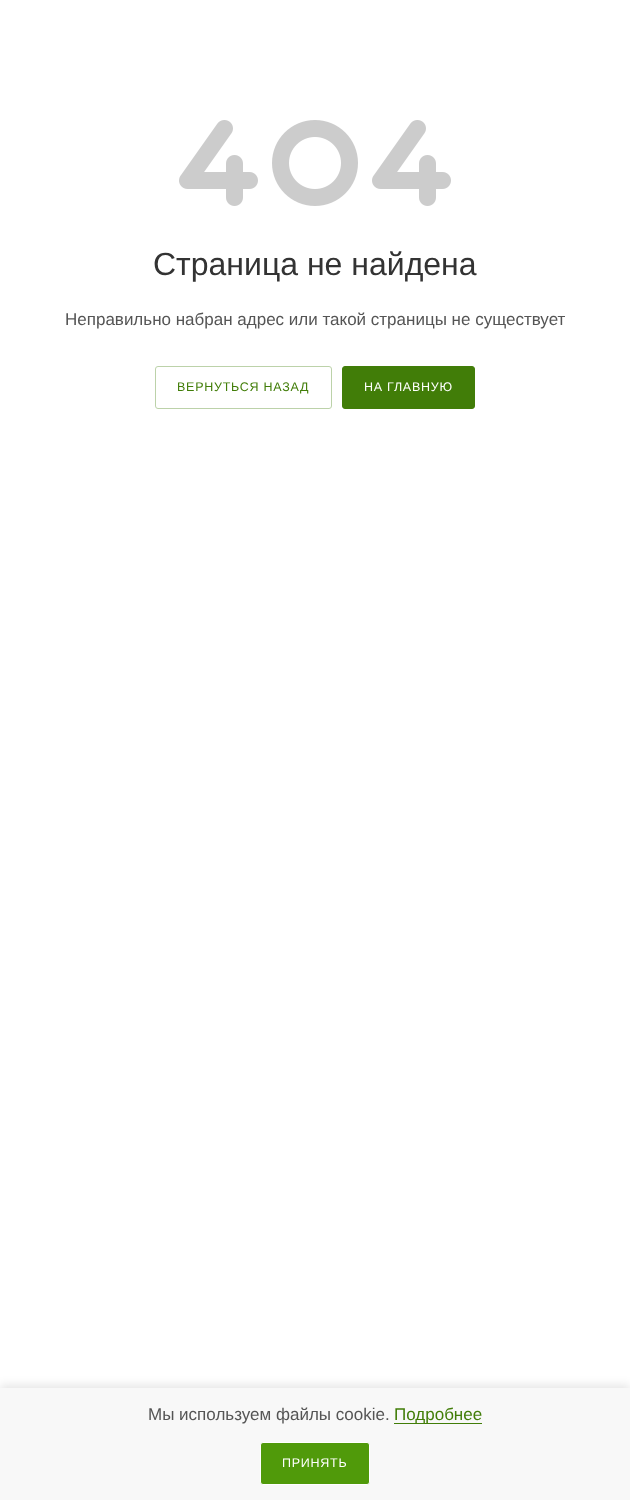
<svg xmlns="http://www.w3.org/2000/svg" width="630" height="1500">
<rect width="100%" height="100%" fill="#fff"/>
<image x="179" y="120" width="272" height="86" href="media/1.png"/>
<text x="153" y="275" style="font-family:Liberation Sans;font-size:32px;fill:#333">Страница не найдена</text>
<text x="65" y="325" style="font-family:Liberation Sans;font-size:17px;fill:#555">Неправильно набран адрес или такой страницы не существует</text>
<rect x="155.5" y="366.5" width="176" height="42" rx="2.5" fill="none" stroke="#bcd2a9"/>
<text x="177" y="391" style="font-family:Liberation Sans;font-size:12.5px;letter-spacing:0.75px;fill:#417d08">ВЕРНУТЬСЯ НАЗАД</text>
<rect x="342.5" y="366.5" width="132" height="42" rx="2.5" fill="#417d08" stroke="#417d08"/>
<text x="364" y="391" style="font-family:Liberation Sans;font-size:12.5px;letter-spacing:0.75px;fill:#fff">НА ГЛАВНУЮ</text>
<rect y="1385" width="630" height="112" fill="#0000001a" filter="blur(5px)"/>
<rect y="1388" width="630" height="112" fill="#f8f8f8"/>
<text x="148" y="1420" style="font-family:Liberation Sans;font-size:17px;fill:#555">Мы используем файлы cookie.</text>
<rect x="394" y="1423" width="88" height="1" fill="#417d08"/>
<text x="394" y="1420" style="font-family:Liberation Sans;font-size:17px;fill:#417d08">Подробнее</text>
<rect x="260.5" y="1442.5" width="109" height="42" rx="2.5" fill="#509a0a" stroke="#fff"/>
<text x="282" y="1467" style="font-family:Liberation Sans;font-size:12.5px;letter-spacing:0.75px;fill:#fff">ПРИНЯТЬ</text>
</svg>
